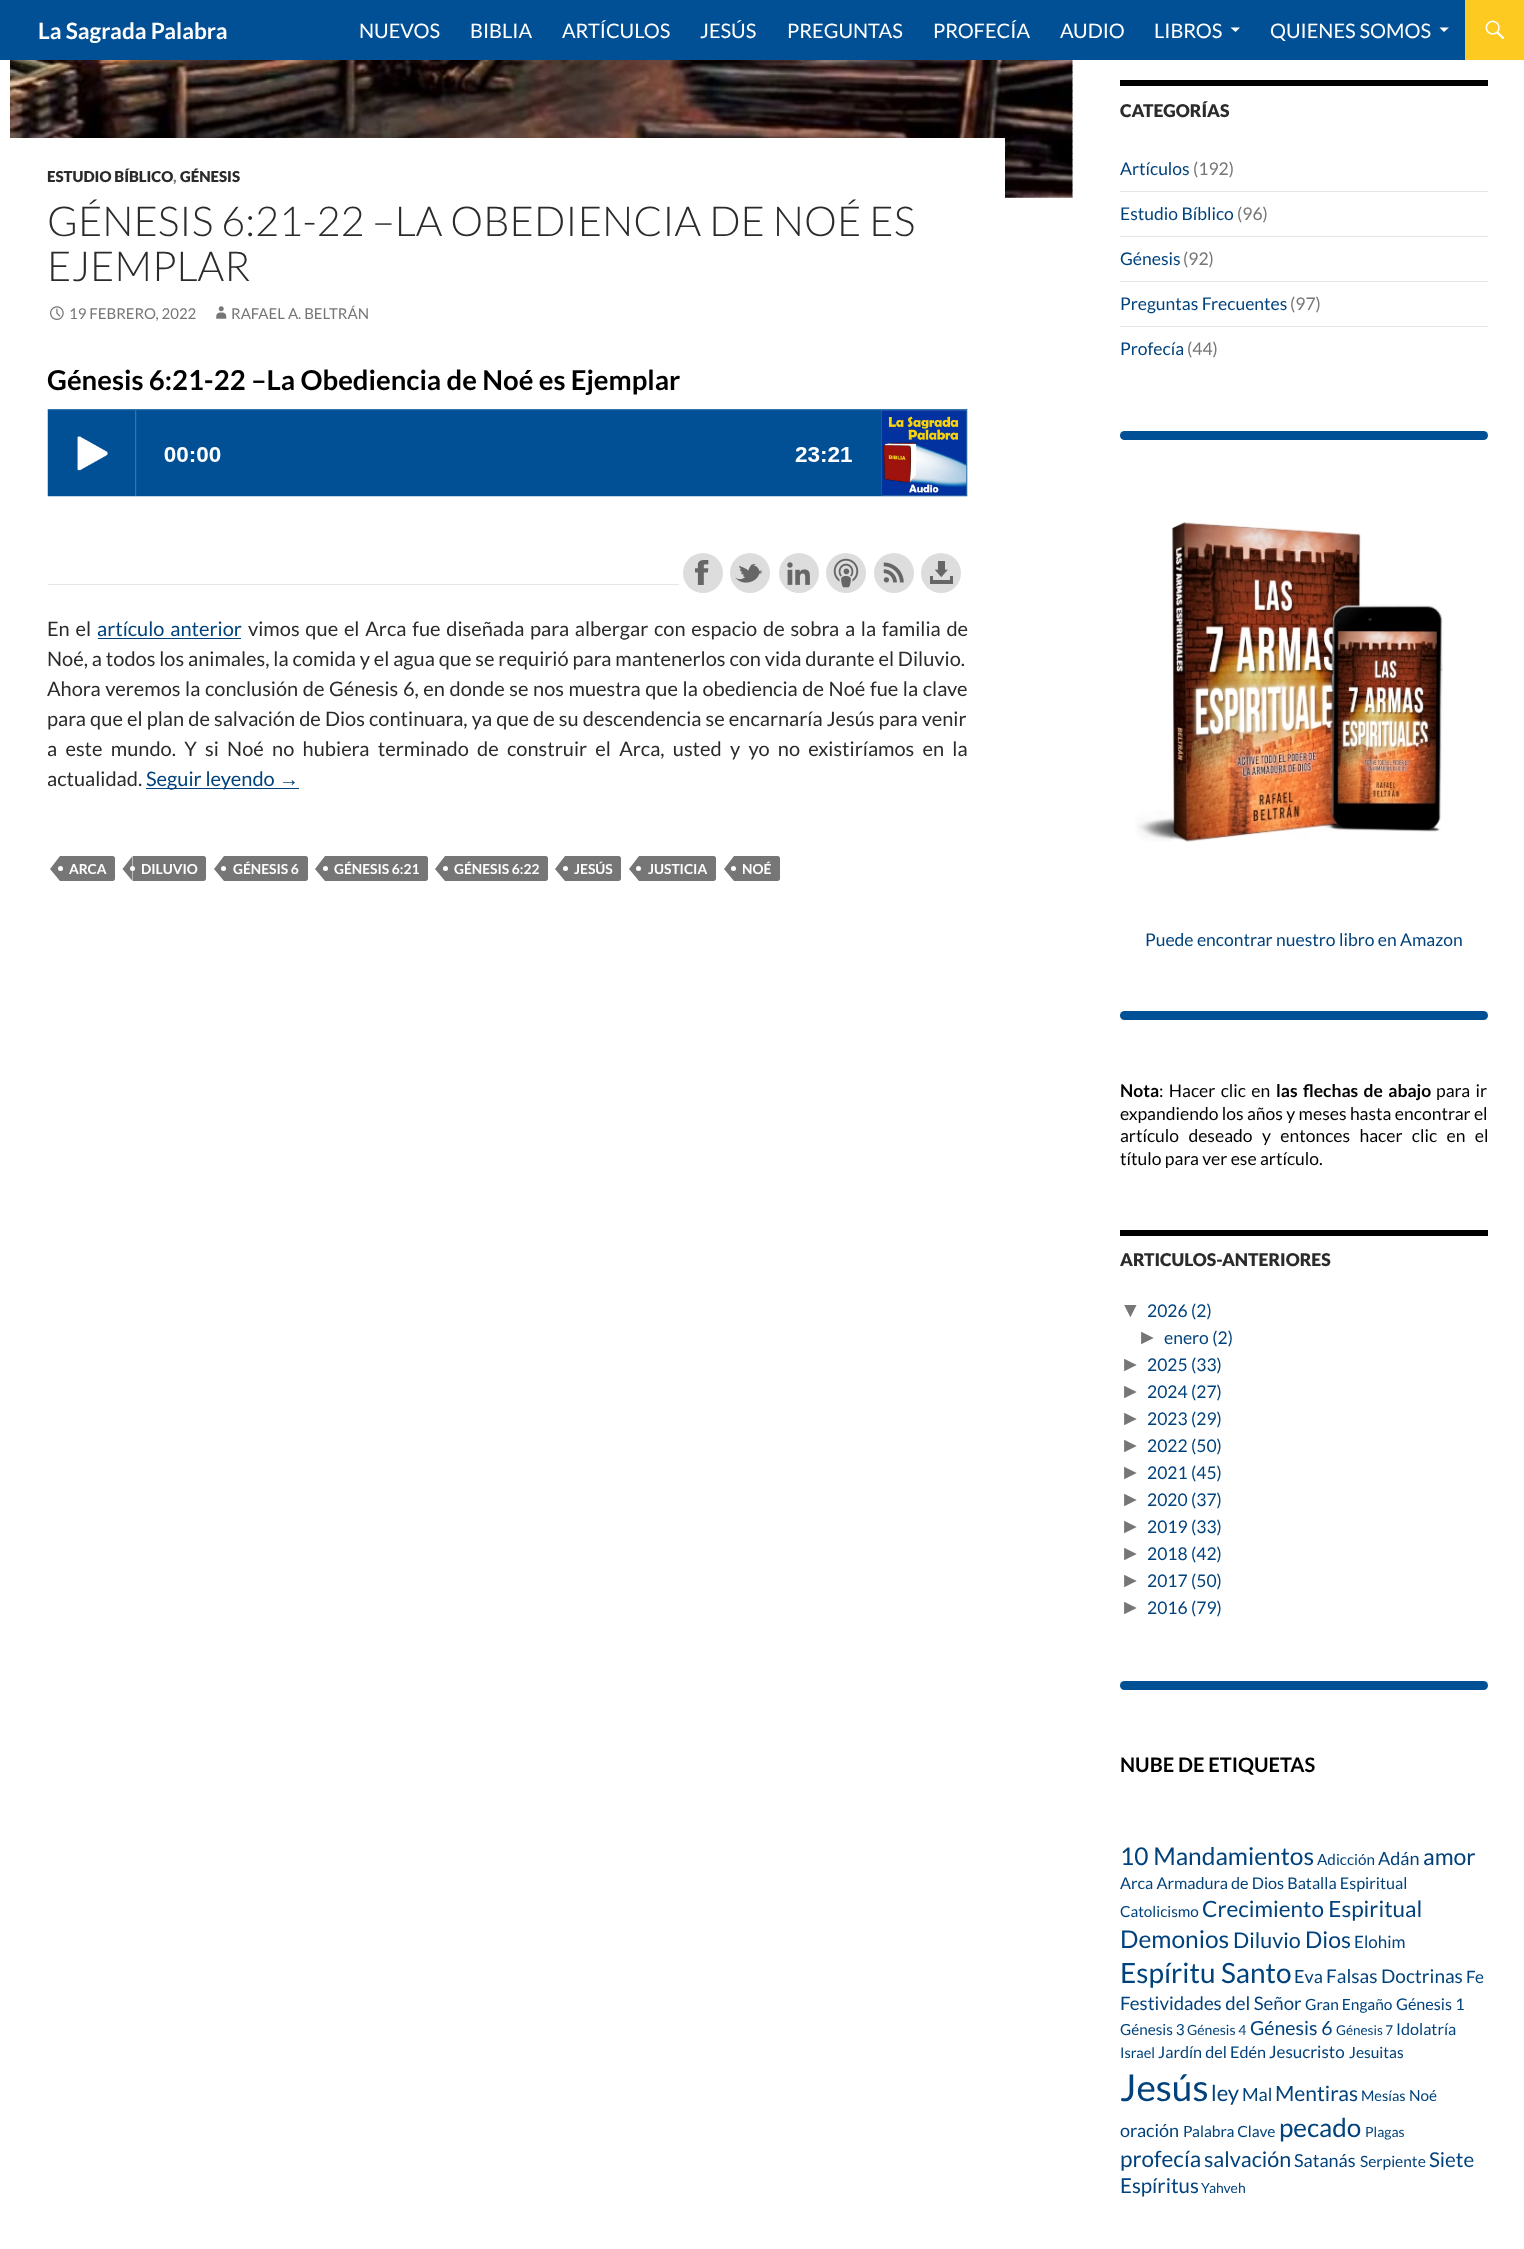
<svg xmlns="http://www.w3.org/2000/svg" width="1524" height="2249">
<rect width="100%" height="100%" fill="#fff"/>
<rect width="1465" height="60" fill="#015095"/>
<text x="38" y="39" style="font-family:Lato;font-size:22.5px;font-weight:bold;fill:#fff">La Sagrada Palabra</text>
<text x="359" y="38" style="font-family:Lato;font-size:20px;fill:#fff">NUEVOS</text>
<text x="470" y="38" style="font-family:Lato;font-size:20px;fill:#fff">BIBLIA</text>
<text x="562" y="38" style="font-family:Lato;font-size:20px;fill:#fff">ARTÍCULOS</text>
<text x="700" y="38" style="font-family:Lato;font-size:20px;fill:#fff">JESÚS</text>
<text x="787" y="38" style="font-family:Lato;font-size:20px;fill:#fff">PREGUNTAS</text>
<text x="933" y="38" style="font-family:Lato;font-size:20px;fill:#fff">PROFECÍA</text>
<text x="1060" y="38" style="font-family:Lato;font-size:20px;fill:#fff">AUDIO</text>
<text x="1154" y="38" style="font-family:Lato;font-size:20px;fill:#fff">LIBROS</text>
<path d="M1230.5 27.5l5 4.5l4.5-4.5z" fill="#fff"/>
<text x="1270" y="38" style="font-family:Lato;font-size:20px;fill:#fff">QUIENES SOMOS</text>
<path d="M1439.5 27.5l4.5 4.5l5-4.5z" fill="#fff"/>
<rect x="1465" width="59" height="60" fill="#fdca21"/>
<image x="1485" y="20" width="20" height="20" href="media/1.png"/>
<rect x="1008" y="60" width="65" height="138" fill="#b2b2b2"/>
<image x="1005" y="60" width="68" height="138" href="media/2.png"/>
<image x="10" y="60" width="1063" height="138" href="media/3.png"/>
<rect x="10" y="138" width="995" height="60" fill="#fff"/>
<text x="47" y="182" style="font-family:Lato;font-size:15px;font-weight:900;fill:#2b2b2b">ESTUDIO BÍBLICO</text>
<text x="173" y="182" style="font-family:Lato;font-size:15px;font-weight:900;fill:#767676">,</text>
<text x="180" y="182" style="font-family:Lato;font-size:15px;font-weight:900;fill:#2b2b2b">GÉNESIS</text>
<text x="47" y="236" style="font-family:Lato;font-size:41.25px;font-weight:300;fill:#2b2b2b">GÉNESIS 6:21-22 –LA OBEDIENCIA DE NOÉ ES</text>
<text x="47" y="281" style="font-family:Lato;font-size:41.25px;font-weight:300;fill:#2b2b2b">EJEMPLAR</text>
<image x="50" y="306" width="14" height="14" href="media/4.png"/>
<text x="69" y="319" style="font-family:Lato;font-size:15px;fill:#767676">19 FEBRERO, 2022</text>
<image x="216" y="306" width="11" height="13" href="media/5.png"/>
<text x="231" y="319" style="font-family:Lato;font-size:15px;fill:#767676">RAFAEL A. BELTRÁN</text>
<text x="47" y="390" style="font-family:Lato;font-size:27.5px;font-weight:bold;fill:#000">Génesis 6:21-22 –La Obediencia de Noé es Ejemplar</text>
<image x="47" y="409" width="921" height="88" href="media/6.png"/>
<circle cx="703" cy="573" r="20" fill="#ddd"/>
<image x="695" y="560" width="14" height="25" href="media/7.png"/>
<circle cx="750" cy="573" r="20" fill="#ddd"/>
<image x="735" y="563" width="28" height="20" href="media/8.png"/>
<circle cx="799" cy="573" r="20" fill="#ddd"/>
<image x="787" y="562" width="23" height="23" href="media/9.png"/>
<circle cx="846" cy="573" r="20" fill="#ddd"/>
<image x="833" y="558" width="26" height="30" href="media/10.png"/>
<circle cx="894" cy="573" r="20" fill="#ddd"/>
<image x="883" y="562" width="21" height="21" href="media/11.png"/>
<circle cx="941" cy="573" r="20" fill="#ddd"/>
<image x="930" y="561" width="23" height="23" href="media/12.png"/>
<rect x="48" y="584" width="631" height="1" fill="#e6e6e6"/>
<text x="47" y="636" word-spacing="1.9" style="font-family:Lato;font-size:20px;fill:#2b2b2b">En el</text>
<text x="97" y="636" word-spacing="2" style="font-family:Lato;font-size:20px;fill:#01427c">artículo anterior</text>
<rect x="98" y="638" width="143" height="1" fill="#01427c"/>
<text x="248" y="636" word-spacing="1.9" style="font-family:Lato;font-size:20px;fill:#2b2b2b">vimos que el Arca fue diseñada para albergar con espacio de sobra a la familia de</text>
<text x="47" y="666" style="font-family:Lato;font-size:20px;fill:#2b2b2b">Noé, a todos los animales, la comida y el agua que se requirió para mantenerlos con vida durante el Diluvio.</text>
<text x="47" y="696" word-spacing="0.75" style="font-family:Lato;font-size:20px;fill:#2b2b2b">Ahora veremos la conclusión de Génesis 6, en donde se nos muestra que la obediencia de Noé fue la clave</text>
<text x="47" y="726" word-spacing="0.25" style="font-family:Lato;font-size:20px;fill:#2b2b2b">para que el plan de salvación de Dios continuara, ya que de su descendencia se encarnaría Jesús para venir</text>
<text x="47" y="756" word-spacing="4.4" style="font-family:Lato;font-size:20px;fill:#2b2b2b">a este mundo. Y si Noé no hubiera terminado de construir el Arca, usted y yo no existiríamos en la</text>
<text x="47" y="786" style="font-family:Lato;font-size:20px;fill:#2b2b2b">actualidad.</text>
<rect x="146" y="788" width="153" height="1" fill="#01427c"/>
<text x="146" y="786" style="font-family:Lato;font-size:20px;fill:#01427c">Seguir leyendo</text>
<text x="279" y="786" style="font-family:Liberation Sans;font-size:20px;fill:#01427c">→</text>
<path d="M60 856h52.5c1.5 0 2.5 1 2.5 2.5v20c0 1.5-1 2.5-2.5 2.5h-52.5z" fill="#767676"/>
<path d="M60 856v25l-10-12z" fill="#767676"/>
<circle cx="60.5" cy="868.5" r="2.5" fill="#fff"/>
<text x="69" y="874" style="font-family:Lato;font-size:13.75px;font-weight:bold;fill:#fff">ARCA</text>
<path d="M133 856h70.5c1.5 0 2.5 1 2.5 2.5v20c0 1.5-1 2.5-2.5 2.5h-70.5z" fill="#767676"/>
<path d="M132.5 856v25l-10-12z" fill="#767676"/>
<text x="141" y="874" style="font-family:Lato;font-size:13.75px;font-weight:bold;fill:#fff">DILUVIO</text>
<circle cx="132.5" cy="868.5" r="2.5" fill="#fff"/>
<path d="M224 856h81.5c1.5 0 2.5 1 2.5 2.5v20c0 1.5-1 2.5-2.5 2.5h-81.5z" fill="#767676"/>
<path d="M224 856v25l-10-12z" fill="#767676"/>
<text x="233" y="874" style="font-family:Lato;font-size:13.75px;font-weight:bold;fill:#fff">GÉNESIS 6</text>
<circle cx="223.5" cy="868.5" r="2.5" fill="#fff"/>
<path d="M325 856h100.5c1.5 0 2.5 1 2.5 2.5v20c0 1.5-1 2.5-2.5 2.5h-100.5z" fill="#767676"/>
<path d="M325 856v25l-10-12z" fill="#767676"/>
<circle cx="325.5" cy="868.5" r="2.5" fill="#fff"/>
<text x="334" y="874" style="font-family:Lato;font-size:13.75px;font-weight:bold;fill:#fff">GÉNESIS 6:21</text>
<path d="M445 856h100.5c1.5 0 2.5 1 2.5 2.5v20c0 1.5-1 2.5-2.5 2.5h-100.5z" fill="#767676"/>
<path d="M445 856v25l-10-12z" fill="#767676"/>
<circle cx="445.5" cy="868.5" r="2.5" fill="#fff"/>
<text x="454" y="874" style="font-family:Lato;font-size:13.75px;font-weight:bold;fill:#fff">GÉNESIS 6:22</text>
<path d="M565 856h53.5c1.5 0 2.5 1 2.5 2.5v20c0 1.5-1 2.5-2.5 2.5h-53.5z" fill="#767676"/>
<path d="M565 856v25l-10-12z" fill="#767676"/>
<circle cx="565.5" cy="868.5" r="2.5" fill="#fff"/>
<text x="574" y="874" style="font-family:Lato;font-size:13.75px;font-weight:bold;fill:#fff">JESÚS</text>
<path d="M639 856h74.5c1.5 0 2.5 1 2.5 2.5v20c0 1.5-1 2.5-2.5 2.5h-74.5z" fill="#767676"/>
<path d="M639 856v25l-10-12z" fill="#767676"/>
<text x="648" y="874" style="font-family:Lato;font-size:13.75px;font-weight:bold;fill:#fff">JUSTICIA</text>
<circle cx="638.5" cy="868.5" r="2.5" fill="#fff"/>
<path d="M734 856h43.5c1.5 0 2.5 1 2.5 2.5v20c0 1.5-1 2.5-2.5 2.5h-43.5z" fill="#767676"/>
<path d="M734 856v25l-10-12z" fill="#767676"/>
<text x="742" y="874" style="font-family:Lato;font-size:13.75px;font-weight:bold;fill:#fff">NOÉ</text>
<circle cx="733.5" cy="868.5" r="2.5" fill="#fff"/>
<rect x="1120" y="80" width="368" height="6" fill="#000"/>
<text x="1120" y="117" style="font-family:Lato;font-size:17.5px;font-weight:900;fill:#2b2b2b">CATEGORÍAS</text>
<text x="1120" y="175" style="font-family:Lato;font-size:17.5px;fill:#01427c">Artículos</text>
<text x="1193" y="175" style="font-family:Lato;font-size:17.5px;fill:#767676">(192)</text>
<rect x="1120" y="191" width="368" height="1" fill="#e6e6e6"/>
<text x="1120" y="220" style="font-family:Lato;font-size:17.5px;fill:#01427c">Estudio Bíblico</text>
<text x="1237" y="220" style="font-family:Lato;font-size:17.5px;fill:#767676">(96)</text>
<rect x="1120" y="236" width="368" height="1" fill="#e6e6e6"/>
<text x="1120" y="265" style="font-family:Lato;font-size:17.5px;fill:#01427c">Génesis</text>
<text x="1183" y="265" style="font-family:Lato;font-size:17.5px;fill:#767676">(92)</text>
<rect x="1120" y="281" width="368" height="1" fill="#e6e6e6"/>
<text x="1120" y="310" style="font-family:Lato;font-size:17.5px;fill:#01427c">Preguntas Frecuentes</text>
<text x="1290" y="310" style="font-family:Lato;font-size:17.5px;fill:#767676">(97)</text>
<rect x="1120" y="326" width="368" height="1" fill="#e6e6e6"/>
<text x="1120" y="355" style="font-family:Lato;font-size:17.5px;fill:#01427c">Profecía</text>
<text x="1187" y="355" style="font-family:Lato;font-size:17.5px;fill:#767676">(44)</text>
<rect x="1120" y="431" width="368" height="9" rx="4.5" fill="#015095"/>
<image x="1135" y="522" width="308" height="320" href="media/13.png"/>
<text x="1145" y="946" style="font-family:Lato;font-size:17.5px;fill:#01427c">Puede encontrar nuestro libro en Amazon</text>
<rect x="1120" y="1011" width="368" height="9" rx="4.5" fill="#015095"/>
<text x="1120" y="1097" style="font-family:Lato;font-size:17.5px;font-weight:bold;fill:#000">Nota</text>
<text x="1159" y="1097" word-spacing="2" style="font-family:Lato;font-size:17.5px;fill:#000">: Hacer clic en</text>
<text x="1276" y="1097" word-spacing="2" style="font-family:Lato;font-size:17.5px;font-weight:bold;fill:#000">las flechas de abajo</text>
<text x="1436" y="1097" word-spacing="2" style="font-family:Lato;font-size:17.5px;fill:#000">para ir</text>
<text x="1120" y="1120" style="font-family:Lato;font-size:17.5px;fill:#000">expandiendo los años y meses hasta encontrar el</text>
<text x="1120" y="1142" word-spacing="6" style="font-family:Lato;font-size:17.5px;fill:#000">artículo deseado y entonces hacer clic en el</text>
<text x="1120" y="1165" style="font-family:Lato;font-size:17.5px;fill:#000">título para ver ese artículo.</text>
<rect x="1120" y="1230" width="368" height="6" fill="#000"/>
<text x="1120" y="1266" style="font-family:Lato;font-size:17.5px;font-weight:900;fill:#2b2b2b">ARTICULOS-ANTERIORES</text>
<text x="1120" y="1317" style="font-family:Liberation Sans;font-size:21px;fill:#767676">▼</text>
<text x="1147" y="1317" style="font-family:Lato;font-size:17.5px;fill:#01427c">2026 (2)</text>
<text x="1137" y="1344" style="font-family:Liberation Sans;font-size:21px;fill:#767676">►</text>
<text x="1164" y="1344" style="font-family:Lato;font-size:17.5px;fill:#01427c">enero (2)</text>
<text x="1120" y="1371" style="font-family:Liberation Sans;font-size:21px;fill:#767676">►</text>
<text x="1147" y="1371" style="font-family:Lato;font-size:17.5px;fill:#01427c">2025 (33)</text>
<text x="1120" y="1398" style="font-family:Liberation Sans;font-size:21px;fill:#767676">►</text>
<text x="1147" y="1398" style="font-family:Lato;font-size:17.5px;fill:#01427c">2024 (27)</text>
<text x="1120" y="1425" style="font-family:Liberation Sans;font-size:21px;fill:#767676">►</text>
<text x="1147" y="1425" style="font-family:Lato;font-size:17.5px;fill:#01427c">2023 (29)</text>
<text x="1120" y="1452" style="font-family:Liberation Sans;font-size:21px;fill:#767676">►</text>
<text x="1147" y="1452" style="font-family:Lato;font-size:17.5px;fill:#01427c">2022 (50)</text>
<text x="1120" y="1479" style="font-family:Liberation Sans;font-size:21px;fill:#767676">►</text>
<text x="1147" y="1479" style="font-family:Lato;font-size:17.5px;fill:#01427c">2021 (45)</text>
<text x="1120" y="1506" style="font-family:Liberation Sans;font-size:21px;fill:#767676">►</text>
<text x="1147" y="1506" style="font-family:Lato;font-size:17.5px;fill:#01427c">2020 (37)</text>
<text x="1120" y="1533" style="font-family:Liberation Sans;font-size:21px;fill:#767676">►</text>
<text x="1147" y="1533" style="font-family:Lato;font-size:17.5px;fill:#01427c">2019 (33)</text>
<text x="1120" y="1560" style="font-family:Liberation Sans;font-size:21px;fill:#767676">►</text>
<text x="1147" y="1560" style="font-family:Lato;font-size:17.5px;fill:#01427c">2018 (42)</text>
<text x="1120" y="1587" style="font-family:Liberation Sans;font-size:21px;fill:#767676">►</text>
<text x="1147" y="1587" style="font-family:Lato;font-size:17.5px;fill:#01427c">2017 (50)</text>
<text x="1120" y="1614" style="font-family:Liberation Sans;font-size:21px;fill:#767676">►</text>
<text x="1147" y="1614" style="font-family:Lato;font-size:17.5px;fill:#01427c">2016 (79)</text>
<rect x="1120" y="1681" width="368" height="9" rx="4.5" fill="#015095"/>
<text x="1120" y="1772" style="font-family:Lato;font-size:20px;font-weight:bold;fill:#000">NUBE DE ETIQUETAS</text>
<text x="1120" y="1865" style="font-family:Lato;font-size:24.5px;fill:#01427c">10 Mandamientos</text>
<text x="1317" y="1865" style="font-family:Lato;font-size:15.25px;fill:#01427c">Adicción</text>
<text x="1378" y="1865" style="font-family:Lato;font-size:18px;fill:#01427c">Adán</text>
<text x="1423" y="1865" style="font-family:Lato;font-size:23px;fill:#01427c">amor</text>
<text x="1120" y="1889" style="font-family:Lato;font-size:16.2px;fill:#01427c">Arca Armadura de Dios Batalla Espiritual</text>
<text x="1120" y="1917" style="font-family:Lato;font-size:15.25px;fill:#01427c">Catolicismo</text>
<text x="1202" y="1917" style="font-family:Lato;font-size:22.5px;fill:#01427c">Crecimiento Espiritual</text>
<text x="1120" y="1948" style="font-family:Lato;font-size:24.5px;fill:#01427c">Demonios</text>
<text x="1233" y="1948" style="font-family:Lato;font-size:21.5px;fill:#01427c">Diluvio</text>
<text x="1305" y="1948" style="font-family:Lato;font-size:23px;fill:#01427c">Dios</text>
<text x="1354" y="1948" style="font-family:Lato;font-size:17px;fill:#01427c">Elohim</text>
<text x="1120" y="1983" style="font-family:Lato;font-size:28px;fill:#01427c">Espíritu Santo</text>
<text x="1294" y="1983" style="font-family:Lato;font-size:18px;fill:#01427c">Eva</text>
<text x="1326" y="1983" style="font-family:Lato;font-size:19px;fill:#01427c">Falsas Doctrinas</text>
<text x="1466" y="1983" style="font-family:Lato;font-size:17px;fill:#01427c">Fe</text>
<text x="1120" y="2010" style="font-family:Lato;font-size:18.6px;fill:#01427c">Festividades del Señor</text>
<text x="1305" y="2010" style="font-family:Lato;font-size:15.5px;fill:#01427c">Gran Engaño</text>
<text x="1396" y="2010" style="font-family:Lato;font-size:16.2px;fill:#01427c">Génesis 1</text>
<text x="1120" y="2035" style="font-family:Lato;font-size:15.25px;fill:#01427c">Génesis 3</text>
<text x="1187" y="2035" style="font-family:Lato;font-size:14px;fill:#01427c">Génesis 4</text>
<text x="1250" y="2035" style="font-family:Lato;font-size:19.5px;fill:#01427c">Génesis 6</text>
<text x="1336" y="2035" style="font-family:Lato;font-size:13.5px;fill:#01427c">Génesis 7</text>
<text x="1396" y="2035" style="font-family:Lato;font-size:16.2px;fill:#01427c">Idolatría</text>
<text x="1120" y="2058" style="font-family:Lato;font-size:14.5px;fill:#01427c">Israel</text>
<text x="1158" y="2058" style="font-family:Lato;font-size:16.2px;fill:#01427c">Jardín del Edén</text>
<text x="1269" y="2058" style="font-family:Lato;font-size:17px;fill:#01427c">Jesucristo</text>
<text x="1349" y="2058" style="font-family:Lato;font-size:15.5px;fill:#01427c">Jesuitas</text>
<text x="1120" y="2101" style="font-family:Lato;font-size:37px;fill:#01427c">Jesús</text>
<text x="1211" y="2101" style="font-family:Lato;font-size:22px;fill:#01427c">ley</text>
<text x="1242" y="2101" style="font-family:Lato;font-size:18px;fill:#01427c">Mal</text>
<text x="1275" y="2101" style="font-family:Lato;font-size:21px;fill:#01427c">Mentiras</text>
<text x="1361" y="2101" style="font-family:Lato;font-size:14.5px;fill:#01427c">Mesías</text>
<text x="1409" y="2101" style="font-family:Lato;font-size:15.25px;fill:#01427c">Noé</text>
<text x="1120" y="2137" style="font-family:Lato;font-size:18px;fill:#01427c">oración</text>
<text x="1183" y="2137" style="font-family:Lato;font-size:15.5px;fill:#01427c">Palabra Clave</text>
<text x="1279" y="2137" style="font-family:Lato;font-size:26px;fill:#01427c">pecado</text>
<text x="1365" y="2137" style="font-family:Lato;font-size:14px;fill:#01427c">Plagas</text>
<text x="1120" y="2167" style="font-family:Lato;font-size:22.5px;fill:#01427c">profecía</text>
<text x="1204" y="2167" style="font-family:Lato;font-size:21.5px;fill:#01427c">salvación</text>
<text x="1294" y="2167" style="font-family:Lato;font-size:18px;fill:#01427c">Satanás</text>
<text x="1360" y="2167" style="font-family:Lato;font-size:15.5px;fill:#01427c">Serpiente</text>
<text x="1429" y="2167" style="font-family:Lato;font-size:20.5px;fill:#01427c">Siete</text>
<text x="1120" y="2193" style="font-family:Lato;font-size:20.5px;fill:#01427c">Espíritus</text>
<text x="1201" y="2193" style="font-family:Lato;font-size:14px;fill:#01427c">Yahveh</text>
</svg>
